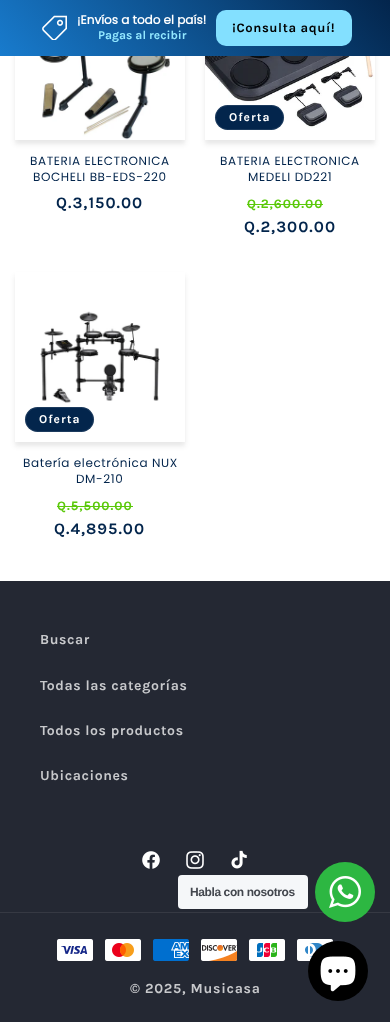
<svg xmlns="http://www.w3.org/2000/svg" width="390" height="1022">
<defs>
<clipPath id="clip1"><path d="M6 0h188v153h-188zm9-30h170v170h-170z" clip-rule="evenodd"/></clipPath>
<clipPath id="clip2"><path d="M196 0h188v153h-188zm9-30h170v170h-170z" clip-rule="evenodd"/></clipPath>
<linearGradient id="g1" gradientUnits="userSpaceOnUse" x1="77" y1="138" x2="313" y2="-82"><stop offset="0" stop-color="#187bcd"/><stop offset="1" stop-color="#03254c"/></linearGradient>
<clipPath id="clip3"><path d="M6 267h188v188h-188zm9 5h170v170h-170z" clip-rule="evenodd"/></clipPath>
</defs>
<rect width="100%" height="100%" fill="#fff"/>
<g clip-path="url(#clip1)">
<rect x="15" y="-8" width="170" height="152" fill="#1212121a" filter="blur(2.5px)"/>
</g>
<g clip-path="url(#clip2)">
<rect x="205" y="-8" width="170" height="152" fill="#1212121a" filter="blur(2.5px)"/>
</g>
<rect width="390" height="56" fill="url(#g1)"/>
<image x="42" y="15" width="25" height="25" href="media/1.png"/>
<text x="77" y="24" style="font-family:Poppins;font-size:12px;font-weight:bold;fill:#fff">¡Envíos a todo el país!</text>
<text x="98" y="39" style="font-family:Karla;font-size:12px;font-weight:bold;fill:#93e8ff">Pagas al recibir</text>
<rect x="216" y="10" width="136" height="36" rx="10" fill="#83e0ff"/>
<text x="232" y="32" style="font-family:Karla;font-size:13px;font-weight:bold;letter-spacing:0.6px;fill:#000">¡Consulta aquí!</text>
<image x="26" y="56" width="144" height="84" href="media/2.png"/>
<text x="30" y="165" style="font-family:Poppins;font-size:12px;letter-spacing:0.6px;fill:#03254c">BATERIA ELECTRONICA</text>
<text x="33" y="181" style="font-family:Poppins;font-size:12px;letter-spacing:0.6px;fill:#03254c">BOCHELI BB-EDS-220</text>
<text x="56" y="208" style="font-family:Karla;font-size:16px;font-weight:bold;letter-spacing:1px;fill:#03254c">Q.3,150.00</text>
<image x="205" y="56" width="170" height="72" href="media/3.png"/>
<rect x="215" y="105" width="69" height="25" rx="12.5" fill="#03254c"/>
<rect x="215.5" y="105.5" width="68" height="24" rx="12" fill="none" stroke="#ffffff1a"/>
<text x="229" y="121" style="font-family:Karla;font-size:12px;font-weight:bold;letter-spacing:1px;fill:#fff">Oferta</text>
<text x="220" y="165" style="font-family:Poppins;font-size:12px;letter-spacing:0.6px;fill:#03254c">BATERIA ELECTRONICA</text>
<text x="248" y="181" style="font-family:Poppins;font-size:12px;letter-spacing:0.6px;fill:#03254c">MEDELI DD221</text>
<text x="247" y="208" style="font-family:Karla;font-size:13px;font-weight:bold;letter-spacing:1px;fill:#5bc90a">Q.2,600.00</text>
<rect x="247" y="204" width="76" height="1" fill="#5bc90a"/>
<text x="244" y="232" style="font-family:Karla;font-size:16px;font-weight:bold;letter-spacing:1px;fill:#03254c">Q.2,300.00</text>
<g clip-path="url(#clip3)">
<rect x="15" y="276" width="170" height="170" fill="#1212121a" filter="blur(2.5px)"/>
</g>
<image x="40" y="311" width="120" height="92" href="media/4.png"/>
<rect x="25" y="407" width="69" height="25" rx="12.5" fill="#03254c"/>
<rect x="25.5" y="407.5" width="68" height="24" rx="12" fill="none" stroke="#ffffff1a"/>
<text x="39" y="423" style="font-family:Karla;font-size:12px;font-weight:bold;letter-spacing:1px;fill:#fff">Oferta</text>
<text x="23" y="467" style="font-family:Poppins;font-size:12px;letter-spacing:0.6px;fill:#03254c">Batería electrónica NUX</text>
<text x="76" y="483" style="font-family:Poppins;font-size:12px;letter-spacing:0.6px;fill:#03254c">DM-210</text>
<text x="57" y="510" style="font-family:Karla;font-size:13px;font-weight:bold;letter-spacing:1px;fill:#5bc90a">Q.5,500.00</text>
<rect x="57" y="506" width="76" height="1" fill="#5bc90a"/>
<text x="54" y="534" style="font-family:Karla;font-size:16px;font-weight:bold;letter-spacing:1px;fill:#03254c">Q.4,895.00</text>
<rect y="581" width="390" height="441" fill="#242833"/>
<text x="40" y="644" style="font-family:Karla;font-size:14px;font-weight:bold;letter-spacing:0.6px;fill:#c8c9cc">Buscar</text>
<text x="40" y="690" style="font-family:Karla;font-size:14px;font-weight:bold;letter-spacing:0.6px;fill:#c8c9cc">Todas las categorías</text>
<text x="40" y="735" style="font-family:Karla;font-size:14px;font-weight:bold;letter-spacing:0.6px;fill:#c8c9cc">Todos los productos</text>
<text x="40" y="780" style="font-family:Karla;font-size:14px;font-weight:bold;letter-spacing:0.6px;fill:#c8c9cc">Ubicaciones</text>
<image x="142" y="851" width="18" height="18" href="media/5.png"/>
<image x="186" y="851" width="18" height="18" href="media/6.png"/>
<image x="231" y="850" width="16" height="19" href="media/7.png"/>
<rect y="912" width="390" height="1" fill="#363943"/>
<image x="57" y="939" width="36" height="22" href="media/8.png"/>
<image x="105" y="939" width="36" height="22" href="media/9.png"/>
<image x="153" y="939" width="36" height="22" href="media/10.png"/>
<image x="201" y="939" width="36" height="22" href="media/11.png"/>
<image x="249" y="939" width="36" height="22" href="media/12.png"/>
<image x="297" y="939" width="36" height="22" href="media/13.png"/>
<text x="130" y="993" style="font-family:Karla;font-size:14px;font-weight:bold;letter-spacing:0.75px;fill:#c8c9cc">© 2025, Musicasa</text>
<rect x="178" y="875" width="130" height="34" rx="4" fill="#f5f7f9"/>
<text x="190" y="896" style="font-family:Liberation Sans;font-size:12px;font-weight:bold;letter-spacing:-0.4px;fill:#43474e">Habla con nosotros</text>
<circle cx="345" cy="892" r="30" fill="#2db742"/>
<image x="329" y="876" width="32" height="32" href="media/14.png"/>
<circle cx="338" cy="971" r="30" fill="#000"/>
<image x="320" y="956" width="36" height="36" href="media/15.png"/>
</svg>
